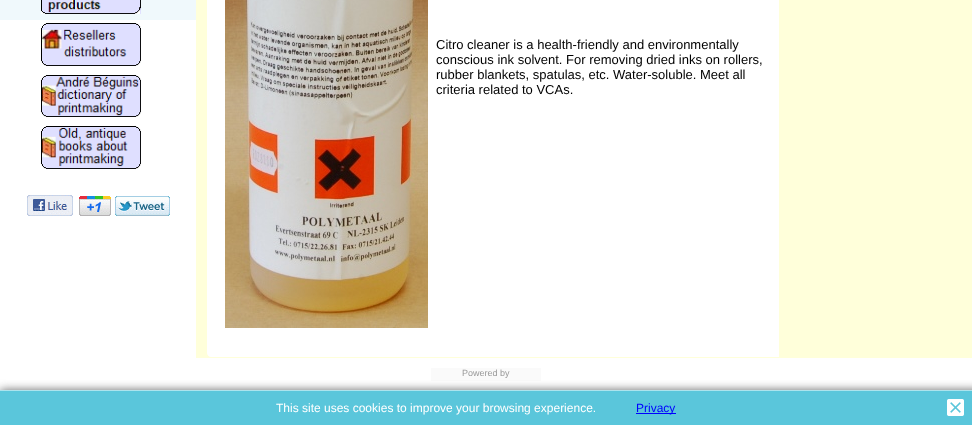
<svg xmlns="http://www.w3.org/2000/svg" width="972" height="425">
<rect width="100%" height="100%" fill="#fff"/>
<rect width="196" height="20" fill="#f0f9fc"/>
<image x="41" y="0" width="100" height="14" href="media/1.png"/>
<image x="41" y="23" width="100" height="43" href="media/2.png"/>
<image x="41" y="75" width="100" height="42" href="media/3.png"/>
<image x="41" y="126" width="100" height="43" href="media/4.png"/>
<image x="27" y="195" width="143" height="21" href="media/5.png"/>
<rect x="196" width="776" height="358" fill="#ffffda"/>
<path d="M207-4h572v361h-568c-2 0-4-2-4-4z" fill="#fff"/>
<image x="225" y="0" width="203" height="328" href="media/6.png"/>
<text x="436" y="49" style="font-family:Liberation Sans;font-size:13px;fill:#000">Citro cleaner is a health-friendly and environmentally</text>
<text x="436" y="64" style="font-family:Liberation Sans;font-size:13px;fill:#000">conscious ink solvent. For removing dried inks on rollers,</text>
<text x="436" y="79" style="font-family:Liberation Sans;font-size:13px;fill:#000">rubber blankets, spatulas, etc. Water-soluble. Meet all</text>
<text x="436" y="94" style="font-family:Liberation Sans;font-size:13px;fill:#000">criteria related to VCAs.</text>
<rect x="431" y="368" width="110" height="13" fill="#fafafa"/>
<text x="462" y="376" style="font-family:Liberation Sans;font-size:9px;fill:#999">Powered by</text>
<rect y="390" width="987" height="35" fill="#666" filter="blur(5px)"/>
<rect y="391" width="972" height="34" fill="#5ac6db"/>
<rect y="390" width="972" height="1" fill="#ace3ed"/>
<text x="276" y="412" style="font-family:Liberation Sans;font-size:12px;fill:#fff">This site uses cookies to improve your browsing experience.</text>
<rect x="636" y="413" width="40" height="1" fill="#00f"/>
<text x="636" y="412" style="font-family:Liberation Sans;font-size:12px;fill:#00f">Privacy</text>
<image x="947" y="399" width="17" height="17" href="media/7.png"/>
</svg>
